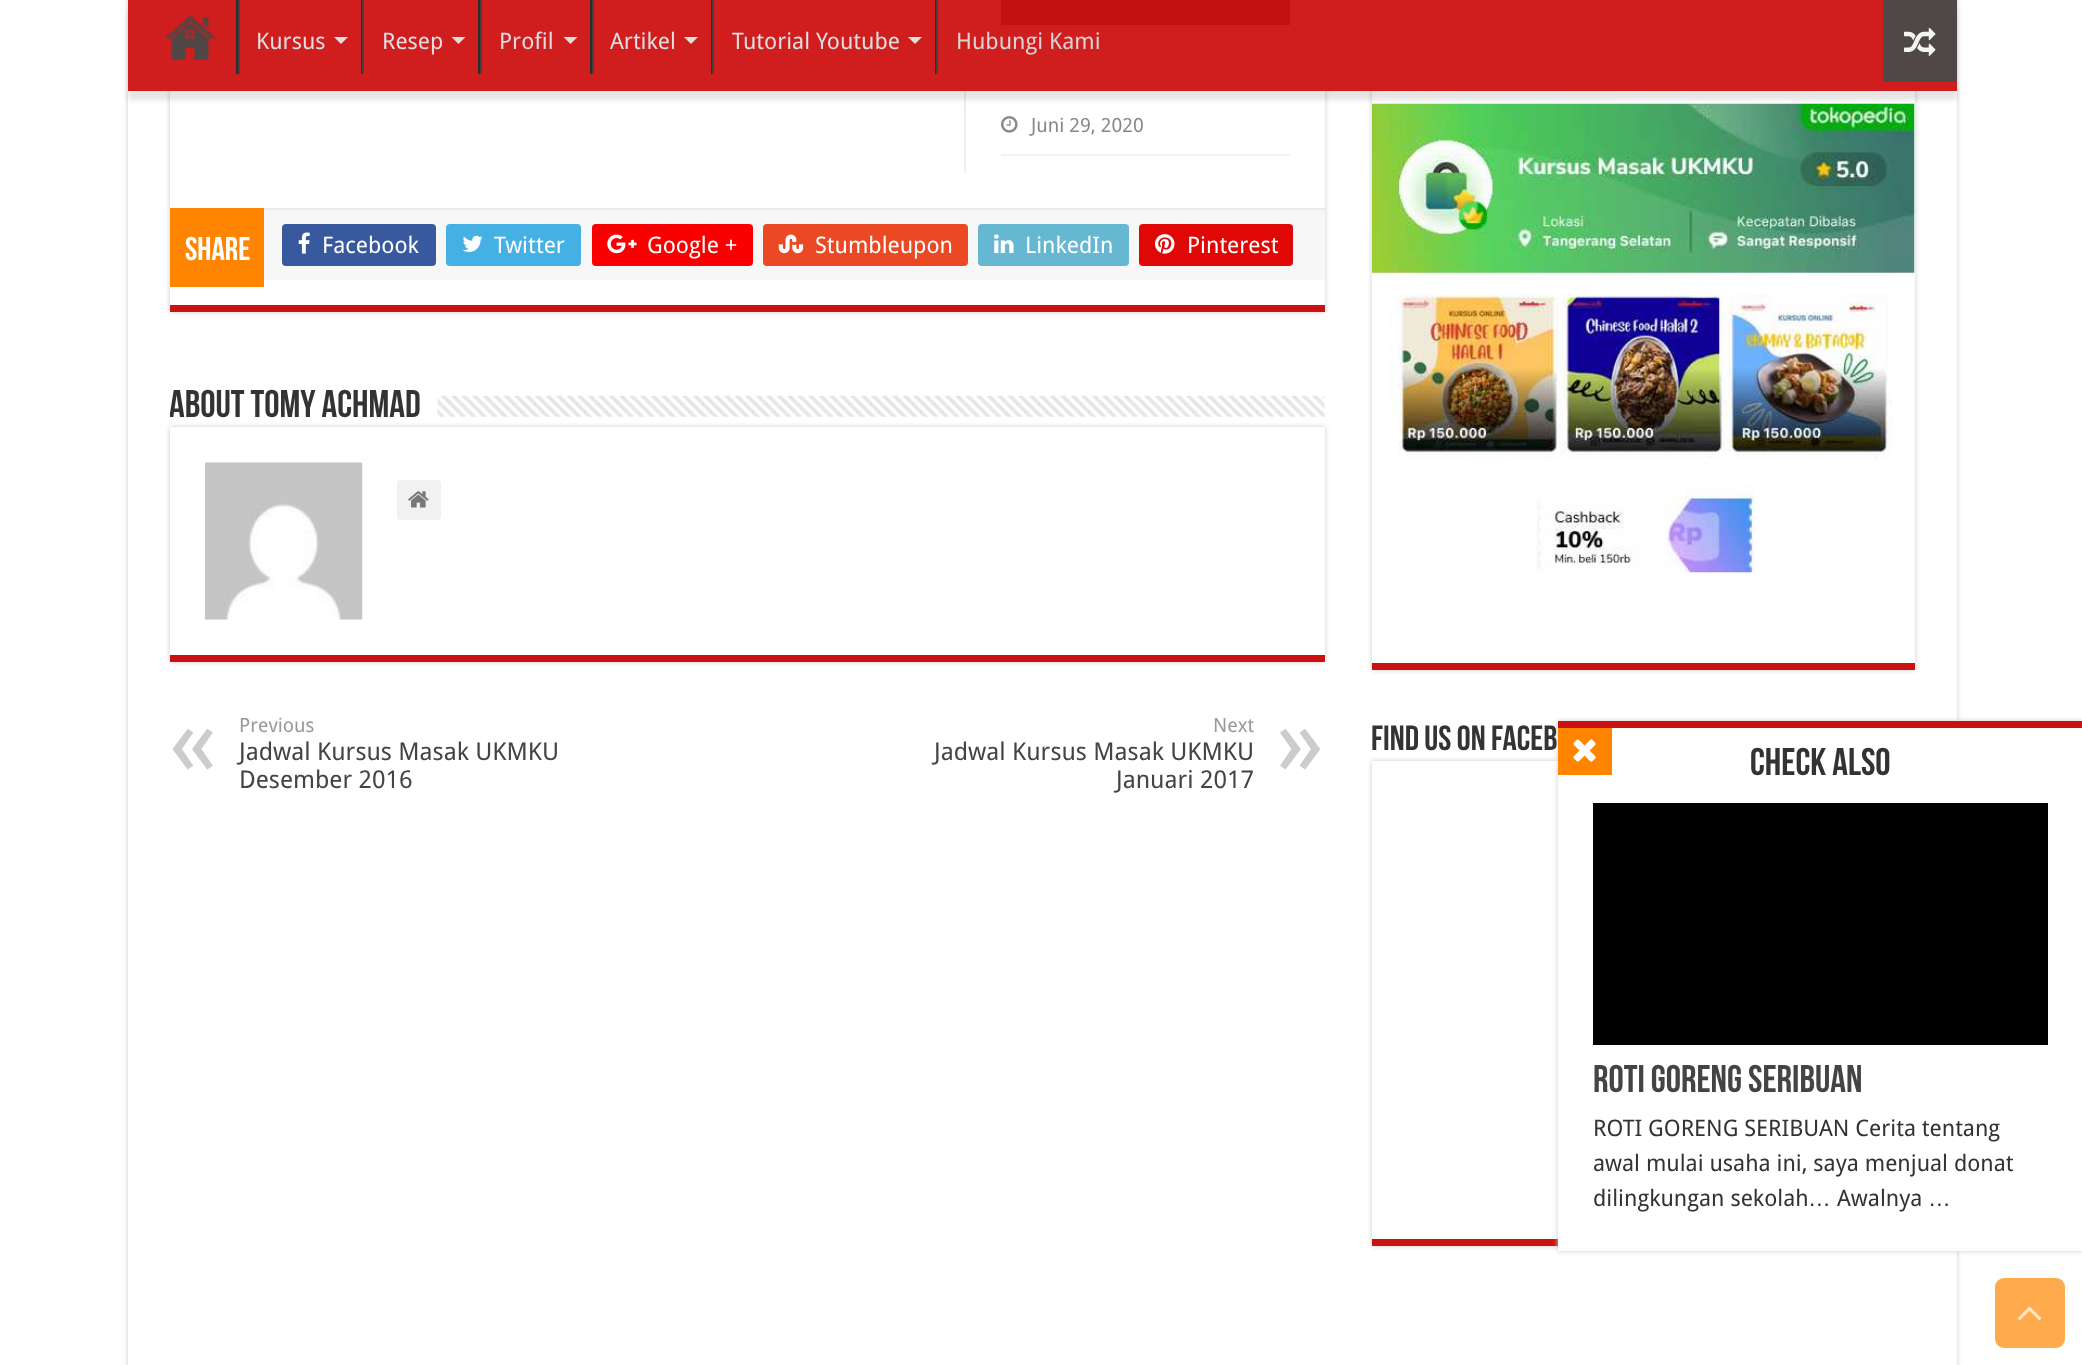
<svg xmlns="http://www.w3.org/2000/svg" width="2082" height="1365">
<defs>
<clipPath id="clip1"><path d="M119 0h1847v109h-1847zm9 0h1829v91h-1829z" clip-rule="evenodd"/></clipPath>
<clipPath id="clip2"><rect x="170" y="382" width="1155" height="45"/></clipPath>
</defs>
<rect width="100%" height="100%" fill="#fff"/>
<rect x="128" y="-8" width="1829" height="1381" fill="#cacaca" filter="blur(2.5px)"/>
<rect x="128" width="1829" height="1365" fill="#fff"/>
<rect x="170" y="-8" width="1155" height="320" fill="#cacaca" filter="blur(2.5px)"/>
<rect x="170" width="1155" height="305" fill="#fff"/>
<rect x="964" width="2" height="173" fill="#eee"/>
<rect x="1001" width="289" height="25" fill="#000"/>
<rect x="1372" y="86" width="543" height="584" fill="#cacaca" filter="blur(2.5px)"/>
<image x="1622" y="56" width="261" height="22" href="media/14.png"/>
<rect x="1372" y="86" width="543" height="577" fill="#fff"/>
<image x="1372" y="103" width="543" height="470" href="media/15.png"/>
<g clip-path="url(#clip1)">
<rect x="128" y="9" width="1829" height="91" fill="#0000001a" filter="blur(2.5px)"/>
</g>
<rect x="128" width="1829" height="91" fill="#cd1112f2"/>
<image x="164" y="15" width="53" height="45" href="media/1.png"/>
<rect x="236" width="2" height="74" fill="#2d2d2d"/>
<rect x="238" width="2" height="74" fill="#424242"/>
<text x="256" y="49" style="font-family:Droid Sans;font-size:22.75px;fill:#dfdfdf">Kursus</text>
<path d="M334 37h14l-7 7z" fill="#dfdfdf"/>
<rect x="361" width="1" height="74" fill="#2d2d2d"/>
<rect x="362" width="2" height="74" fill="#424242"/>
<text x="382" y="49" style="font-family:Droid Sans;font-size:22.75px;fill:#dfdfdf">Resep</text>
<path d="M451.5 37h14l-7 7z" fill="#dfdfdf"/>
<rect x="478" width="2" height="74" fill="#2d2d2d"/>
<rect x="480" width="2" height="74" fill="#424242"/>
<text x="499" y="49" style="font-family:Droid Sans;font-size:22.75px;fill:#dfdfdf">Profil</text>
<path d="M563.5 37h14l-7 7z" fill="#dfdfdf"/>
<rect x="590" width="2" height="74" fill="#2d2d2d"/>
<rect x="592" width="2" height="74" fill="#424242"/>
<text x="610" y="49" style="font-family:Droid Sans;font-size:22.75px;fill:#dfdfdf">Artikel</text>
<path d="M684 37h14l-7 7z" fill="#dfdfdf"/>
<rect x="711" width="1" height="74" fill="#2d2d2d"/>
<rect x="712" width="2" height="74" fill="#424242"/>
<text x="732" y="49" style="font-family:Droid Sans;font-size:22.75px;fill:#dfdfdf">Tutorial Youtube</text>
<path d="M908 37h14l-7 7z" fill="#dfdfdf"/>
<rect x="935" width="1" height="74" fill="#2d2d2d"/>
<rect x="936" width="2" height="74" fill="#424242"/>
<text x="956" y="49" style="font-family:Droid Sans;font-size:22.75px;fill:#dcd3d3">Hubungi Kami</text>
<rect x="1883" width="74" height="82" fill="#504747"/>
<image x="1904" y="27" width="32" height="29" href="media/2.png"/>
<rect x="170" y="305" width="1155" height="7" fill="#cd1112"/>
<rect x="1001" y="154" width="289" height="2" fill="#f2f2f2"/>
<image x="1001" y="116" width="17" height="17" href="media/3.png"/>
<text x="1031" y="132" style="font-family:Droid Sans;font-size:19.5px;fill:#888">Juni 29, 2020</text>
<rect x="264" y="210" width="1061" height="70" fill="#f7f7f7"/>
<rect x="264" y="208" width="1061" height="2" fill="#eaeaea"/>
<rect x="170" y="208" width="94" height="79" fill="#ff8500"/>
<text x="185" y="260" style="font-family:Bebas Neue;font-size:33px;font-weight:bold;fill:#fff">Share</text>
<rect x="282" y="224" width="154" height="42" rx="4" fill="#39599f"/>
<image x="298" y="232" width="12" height="22" href="media/4.png"/>
<text x="322" y="253" style="font-family:Droid Sans;font-size:22.75px;fill:#fff">Facebook</text>
<rect x="446" y="224" width="135" height="42" rx="4" fill="#45b0e3"/>
<image x="462" y="235" width="21" height="17" href="media/5.png"/>
<text x="494" y="253" style="font-family:Droid Sans;font-size:22.75px;fill:#fff">Twitter</text>
<rect x="592" y="224" width="161" height="42" rx="4" fill="#fa0101"/>
<image x="607" y="234" width="30" height="20" href="media/6.png"/>
<text x="647" y="253" style="font-family:Droid Sans;font-size:22.75px;fill:#fff">Google +</text>
<rect x="763" y="224" width="205" height="42" rx="4" fill="#eb4924"/>
<image x="778" y="234" width="26" height="20" href="media/7.png"/>
<text x="815" y="253" style="font-family:Droid Sans;font-size:22.75px;fill:#fff">Stumbleupon</text>
<rect x="978" y="224" width="151" height="42" rx="4" fill="#65b7d2"/>
<image x="994" y="234" width="20" height="19" href="media/8.png"/>
<text x="1025" y="253" style="font-family:Droid Sans;font-size:22.75px;fill:#fff">LinkedIn</text>
<rect x="1139" y="224" width="154" height="42" rx="4" fill="#e00707"/>
<image x="1155" y="234" width="20" height="20" href="media/9.png"/>
<text x="1187" y="253" style="font-family:Droid Sans;font-size:22.75px;fill:#fff">Pinterest</text>
<g clip-path="url(#clip2)">
<text x="169" y="417" style="font-family:Bebas Neue;font-size:38.5px;font-weight:bold;fill:#333">About Tomy Achmad</text>
</g>
<image x="437" y="395" width="888" height="22" href="media/10.png"/>
<rect x="170" y="427" width="1155" height="235" fill="#cacaca" filter="blur(2.5px)"/>
<rect x="170" y="427" width="1155" height="228" fill="#fff"/>
<rect x="170" y="655" width="1155" height="7" fill="#cd1112"/>
<image x="205" y="462" width="158" height="158" href="media/11.png"/>
<rect x="397" y="480" width="44" height="40" rx="4" fill="#f1f1f1"/>
<image x="408" y="491" width="21" height="17" href="media/12.png"/>
<text x="239" y="732" style="font-family:Droid Sans;font-size:19.5px;fill:#999">Previous</text>
<text x="169" y="775" style="font-family:Droid Sans;font-size:98px;fill:#ccc">«</text>
<text x="239" y="760" style="font-family:Droid Sans;font-size:24.5px;fill:#444">Jadwal Kursus Masak UKMKU</text>
<text x="239" y="788" style="font-family:Droid Sans;font-size:24.5px;fill:#444">Desember 2016</text>
<text x="1213" y="732" style="font-family:Droid Sans;font-size:19.5px;fill:#999">Next</text>
<text x="934" y="760" style="font-family:Droid Sans;font-size:24.5px;fill:#444">Jadwal Kursus Masak UKMKU</text>
<text x="1276" y="775" style="font-family:Droid Sans;font-size:98px;fill:#ccc">»</text>
<text x="1116" y="788" style="font-family:Droid Sans;font-size:24.5px;fill:#444">Januari 2017</text>
<rect x="1372" y="761" width="543" height="485" fill="#cacaca" filter="blur(2.5px)"/>
<rect x="1372" y="761" width="186" height="478" fill="#fff"/>
<rect x="1372" y="1239" width="186" height="7" fill="#cd1112"/>
<rect x="1558" y="721" width="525" height="530" fill="#cacaca" filter="blur(2.5px)"/>
<rect x="1558" y="728" width="524" height="523" fill="#fff"/>
<rect x="1558" y="721" width="524" height="7" fill="#cd1112"/>
<rect x="1558" y="728" width="54" height="47" fill="#ff8500"/>
<image x="1573" y="739" width="23" height="23" href="media/13.png"/>
<text x="1750" y="775" style="font-family:Bebas Neue;font-size:38.5px;font-weight:bold;fill:#333">Check Also</text>
<rect x="1593" y="803" width="455" height="242" fill="#000"/>
<text x="1593" y="1092" style="font-family:Bebas Neue;font-size:38.5px;font-weight:bold;fill:#444">Roti Goreng Seribuan</text>
<text x="1593" y="1136" style="font-family:Droid Sans;font-size:22.75px;fill:#333">ROTI GORENG SERIBUAN Cerita tentang</text>
<text x="1593" y="1171" style="font-family:Droid Sans;font-size:22.75px;fill:#333">awal mulai usaha ini, saya menjual donat</text>
<text x="1593" y="1206" style="font-family:Droid Sans;font-size:22.75px;fill:#333">dilingkungan sekolah</text>
<text x="1808" y="1206" style="font-family:Liberation Sans;font-size:22.75px;fill:#333">…</text>
<text x="1837" y="1206" style="font-family:Droid Sans;font-size:22.75px;fill:#333">Awalnya</text>
<text x="1928" y="1206" style="font-family:Liberation Sans;font-size:22.75px;fill:#333">…</text>
<rect x="1372" y="663" width="543" height="7" fill="#cd1112"/>
<text x="1371" y="750" style="font-family:Bebas Neue;font-size:35px;font-weight:bold;fill:#333">Find us on Faceb</text>
<rect x="1995" y="1278" width="70" height="70" rx="9" fill="#ffaa4d"/>
<image x="2017" y="1306" width="25" height="15" href="media/16.png"/>
</svg>
